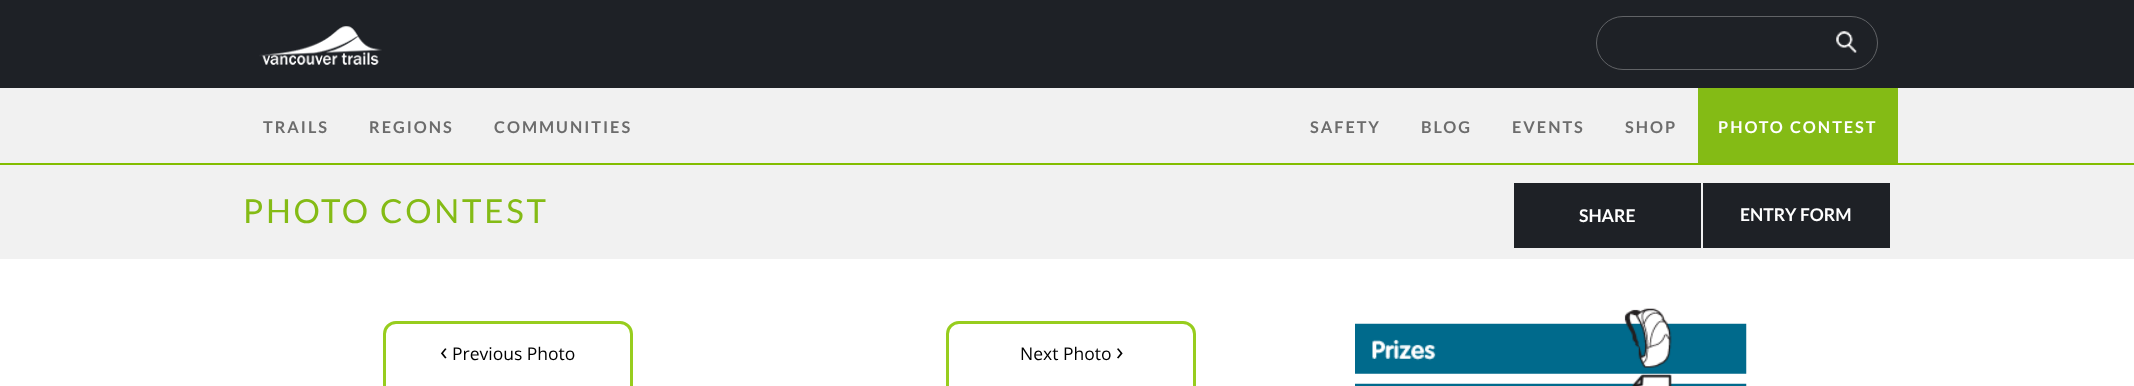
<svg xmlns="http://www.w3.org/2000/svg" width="2134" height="386">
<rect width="100%" height="100%" fill="#fff"/>
<rect width="2134" height="88" fill="#1e2126"/>
<image x="259" y="26" width="123" height="39" href="media/1.png"/>
<rect x="1596.5" y="16.5" width="281" height="53" rx="26.5" fill="none" stroke="#616366"/>
<image x="1836" y="31" width="21" height="22" href="media/2.png"/>
<rect y="88" width="2134" height="75" fill="#f1f1f1"/>
<text x="263" y="133" style="font-family:Lato;font-size:16.25px;font-weight:bold;letter-spacing:2px;fill:#6c6c6c">TRAILS</text>
<text x="369" y="133" style="font-family:Lato;font-size:16.25px;font-weight:bold;letter-spacing:2px;fill:#6c6c6c">REGIONS</text>
<text x="494" y="133" style="font-family:Lato;font-size:16.25px;font-weight:bold;letter-spacing:2px;fill:#6c6c6c">COMMUNITIES</text>
<text x="1310" y="133" style="font-family:Lato;font-size:16.25px;font-weight:bold;letter-spacing:2px;fill:#6c6c6c">SAFETY</text>
<text x="1421" y="133" style="font-family:Lato;font-size:16.25px;font-weight:bold;letter-spacing:2px;fill:#6c6c6c">BLOG</text>
<text x="1512" y="133" style="font-family:Lato;font-size:16.25px;font-weight:bold;letter-spacing:2px;fill:#6c6c6c">EVENTS</text>
<text x="1625" y="133" style="font-family:Lato;font-size:16.25px;font-weight:bold;letter-spacing:2px;fill:#6c6c6c">SHOP</text>
<rect x="1698" y="88" width="200" height="75" fill="#84bb15"/>
<text x="1718" y="133" style="font-family:Lato;font-size:16.25px;font-weight:bold;letter-spacing:2px;fill:#fff">PHOTO CONTEST</text>
<rect y="163" width="2134" height="2" fill="#83bd00"/>
<rect y="165" width="2134" height="94" fill="#f1f1f1"/>
<text x="243" y="223" style="font-family:Lato;font-size:33px;letter-spacing:2.75px;fill:#84bb15">PHOTO CONTEST</text>
<rect x="1514" y="183" width="187" height="65" fill="#1e2126"/>
<text x="1579" y="222" style="font-family:Lato;font-size:17.5px;font-weight:bold;fill:#fff">SHARE</text>
<rect x="1703" y="183" width="187" height="65" fill="#1e2126"/>
<text x="1740" y="221" style="font-family:Lato;font-size:17.5px;font-weight:bold;fill:#fff">ENTRY FORM</text>
<rect x="384.5" y="322.5" width="247" height="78" rx="11.5" fill="none" stroke="#97cd1e" stroke-width="3"/>
<text x="440" y="360" style="font-family:Open Sans;font-size:25px;fill:#000">‹</text>
<text x="452" y="360" style="font-family:Open Sans;font-size:17.5px;fill:#000">Previous Photo</text>
<rect x="947.5" y="322.5" width="247" height="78" rx="11.5" fill="none" stroke="#97cd1e" stroke-width="3"/>
<text x="1020" y="360" style="font-family:Open Sans;font-size:17.5px;fill:#000">Next Photo</text>
<text x="1116" y="360" style="font-family:Open Sans;font-size:25px;fill:#000">›</text>
<image x="1355" y="308" width="392" height="66" href="media/3.png"/>
<image x="1355" y="373" width="392" height="13" href="media/4.png"/>
</svg>
